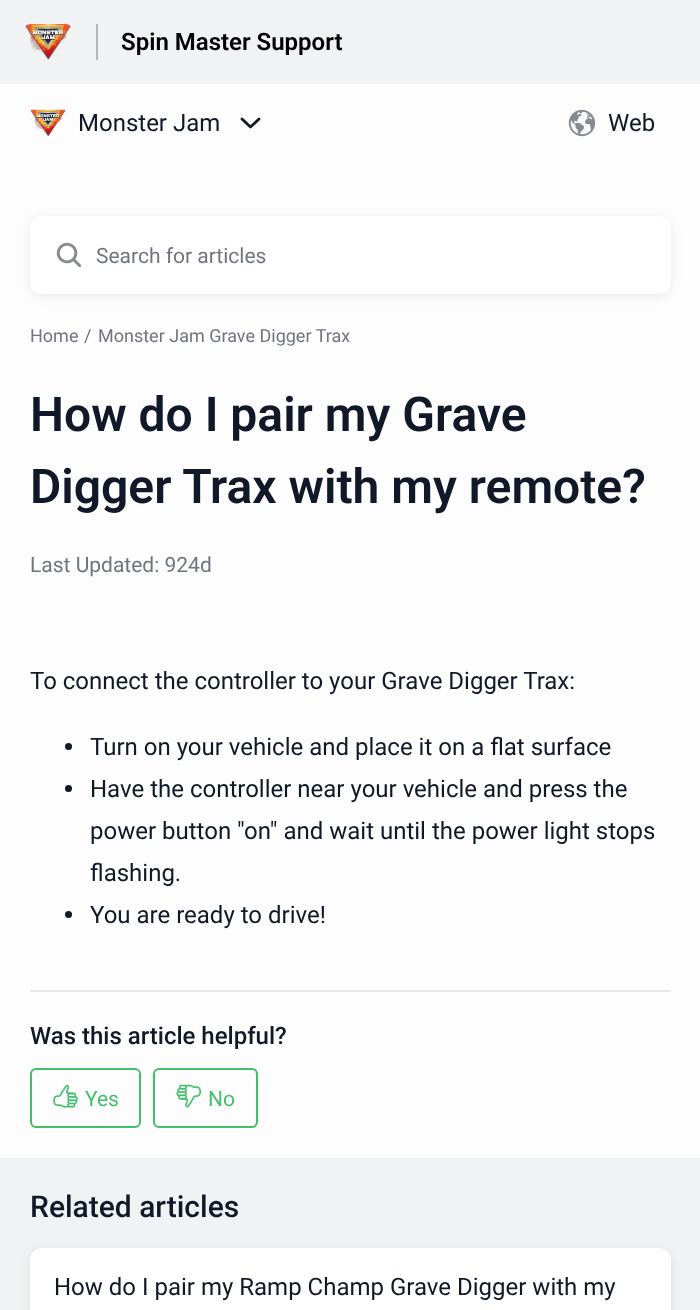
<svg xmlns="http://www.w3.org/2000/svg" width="700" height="1310">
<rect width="100%" height="100%" fill="#fdfdfd"/>
<rect width="700" height="84" fill="#f0f2f4"/>
<rect x="96" y="24" width="2" height="36" fill="#b4b6b7"/>
<image x="25" y="24" width="46" height="36" href="media/1.png"/>
<text x="121" y="50" style="font-family:Roboto;font-size:24px;font-weight:600;fill:#000">Spin Master Support</text>
<image x="30" y="109" width="36" height="27" href="media/2.png"/>
<text x="78" y="131" style="font-family:Roboto;font-size:24px;fill:#111827">Monster Jam</text>
<path d="M242 119l8.5 8l8.5-8" fill="none" stroke="#111827" stroke-width="2.8" stroke-linecap="round" stroke-linejoin="round"/>
<image x="568" y="109" width="28" height="28" href="media/3.png"/>
<text x="608" y="131" style="font-family:Roboto;font-size:24px;fill:#111827">Web</text>
<rect y="1158" width="700" height="152" fill="#f0f2f4"/>
<rect x="30" y="218" width="641" height="78" rx="12" fill="#00000014" filter="blur(6px)"/>
<rect x="30" y="216" width="641" height="78" rx="12" fill="#fff"/>
<image x="56" y="242" width="26" height="26" href="media/4.png"/>
<text x="96" y="263" style="font-family:Roboto;font-size:21px;fill:#70747d">Search for articles</text>
<text x="30" y="342" style="font-family:Roboto;font-size:18px;fill:#70747d">Home</text>
<text x="84" y="342" style="font-family:Roboto;font-size:18px;fill:#70747d">/</text>
<text x="98" y="342" style="font-family:Roboto;font-size:18px;fill:#70747d">Monster Jam Grave Digger Trax</text>
<text x="30" y="431" style="font-family:Roboto;font-size:48px;font-weight:600;fill:#111827">How do I pair my Grave</text>
<text x="30" y="503" style="font-family:Roboto;font-size:48px;font-weight:600;fill:#111827">Digger Trax with my remote?</text>
<text x="30" y="572" style="font-family:Roboto;font-size:21px;fill:#70747d">Last Updated: 924d</text>
<rect x="30" y="990" width="641" height="2" fill="#e7e8e9"/>
<text x="30" y="689" style="font-family:Roboto;font-size:24px;fill:#111827">To connect the controller to your Grave Digger Trax:</text>
<circle cx="68.5" cy="746.5" r="3.5" fill="#111827"/>
<text x="90" y="755" style="font-family:Roboto;font-size:24px;fill:#111827">Turn on your vehicle and place it on a flat surface</text>
<circle cx="68.5" cy="788.5" r="3.5" fill="#111827"/>
<text x="90" y="797" style="font-family:Roboto;font-size:24px;fill:#111827">Have the controller near your vehicle and press the</text>
<text x="90" y="839" style="font-family:Roboto;font-size:24px;fill:#111827">power button "on" and wait until the power light stops</text>
<text x="90" y="881" style="font-family:Roboto;font-size:24px;fill:#111827">flashing.</text>
<circle cx="68.5" cy="914.5" r="3.5" fill="#111827"/>
<text x="90" y="923" style="font-family:Roboto;font-size:24px;fill:#111827">You are ready to drive!</text>
<text x="30" y="1044" style="font-family:Roboto;font-size:24px;font-weight:500;fill:#111827">Was this article helpful?</text>
<rect x="31" y="1069" width="109" height="58" rx="5" fill="none" stroke="#43bf6c" stroke-width="2"/>
<image x="53" y="1084" width="25" height="24" href="media/5.png"/>
<text x="85" y="1106" style="font-family:Roboto;font-size:21px;fill:#43bf6c">Yes</text>
<rect x="154" y="1069" width="103" height="58" rx="5" fill="none" stroke="#43bf6c" stroke-width="2"/>
<image x="176" y="1084" width="25" height="24" href="media/6.png"/>
<text x="208" y="1106" style="font-family:Roboto;font-size:21px;fill:#43bf6c">No</text>
<text x="30" y="1217" style="font-family:Roboto;font-size:30px;font-weight:500;fill:#111827">Related articles</text>
<rect x="30" y="1250" width="641" height="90" rx="12" fill="#00000014" filter="blur(6px)"/>
<path d="M42 1248h617c6.5 0 12 5.5 12 12v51h-641v-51c0-6.5 5.5-12 12-12z" fill="#fff"/>
<text x="54" y="1295" style="font-family:Roboto;font-size:24px;fill:#111827">How do I pair my Ramp Champ Grave Digger with my</text>
</svg>
